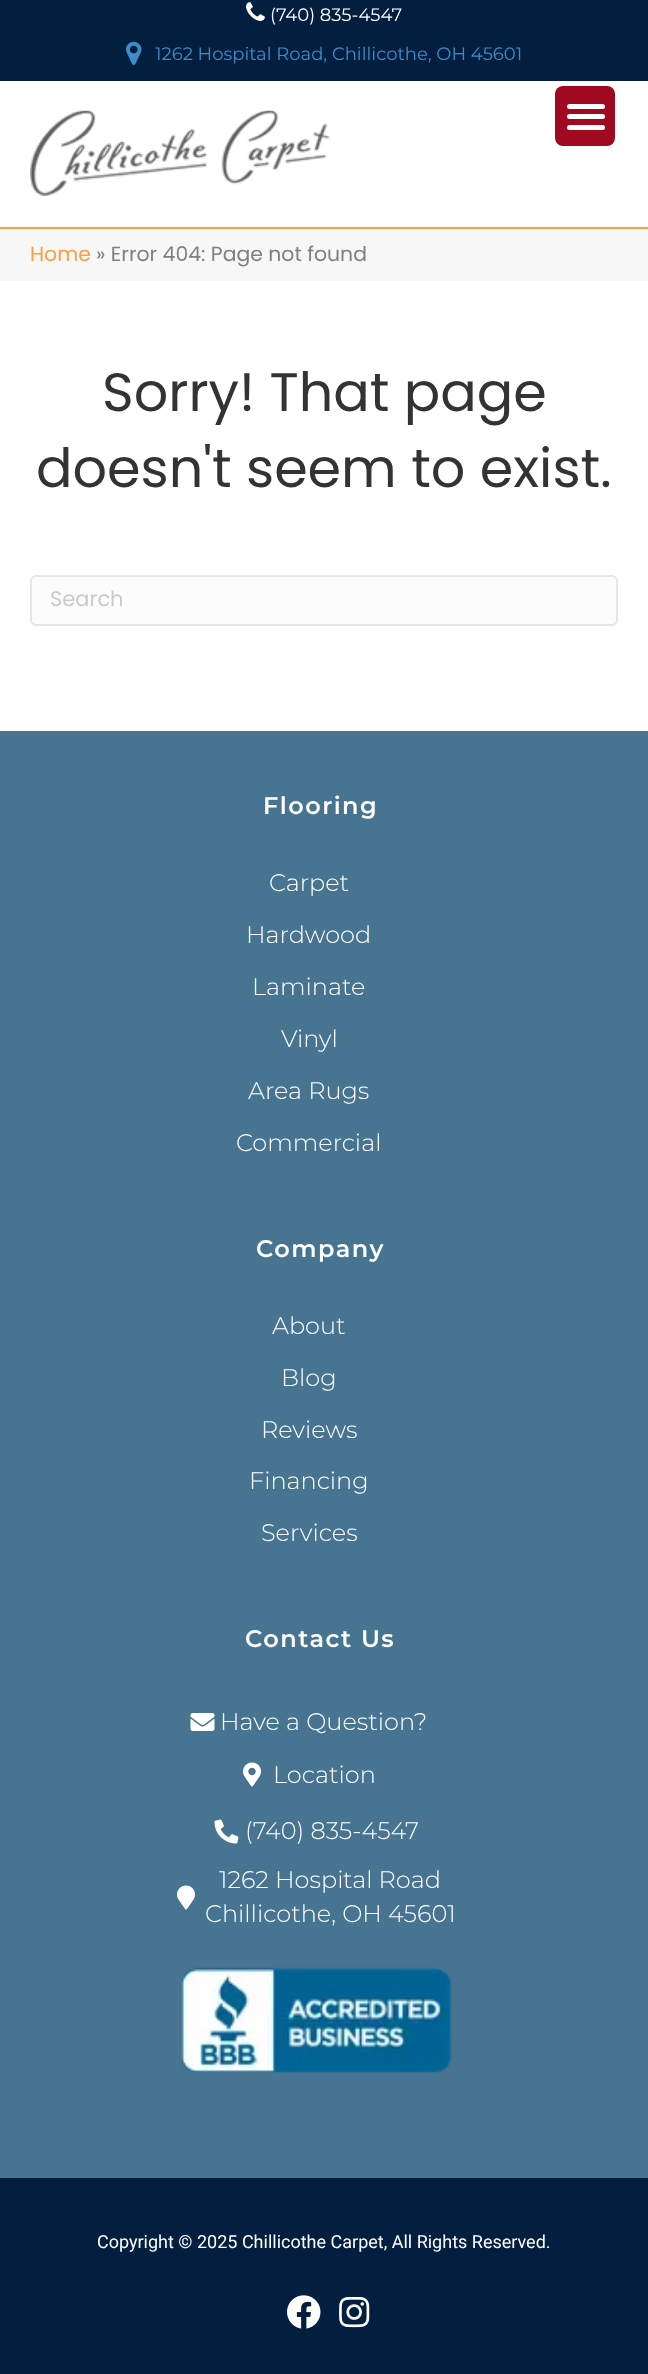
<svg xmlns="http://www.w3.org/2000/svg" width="648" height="2374">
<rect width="100%" height="100%" fill="#fff"/>
<rect width="648" height="81" fill="#031f3f"/>
<image x="246" y="2" width="19" height="19" href="media/1.png"/>
<text x="270" y="21" style="font-family:Montserrat;font-size:18px;fill:#fff">(740) 835-4547</text>
<image x="126" y="41" width="16" height="24" href="media/2.png"/>
<text x="155" y="60" style="font-family:Montserrat;font-size:18px;fill:#428bca">1262 Hospital Road, Chillicothe, OH 45601</text>
<rect y="227" width="648" height="2" fill="#f7a145"/>
<image x="30" y="110" width="300" height="86" href="media/3.png"/>
<rect y="229" width="648" height="52" fill="#f7f7f7"/>
<text x="30" y="261" style="font-family:Poppins;font-size:20.4px;fill:#f7a145">Home</text>
<text x="96" y="261" style="font-family:Poppins;font-size:20.4px;fill:#808080">» Error 404: Page not found</text>
<text x="102" y="411" style="font-family:Poppins;font-size:54px;fill:#333">Sorry! That page</text>
<text x="36" y="487" style="font-family:Poppins;font-size:54px;fill:#333">doesn't seem to exist.</text>
<rect x="31" y="576" width="586" height="49" rx="5" fill="#fcfcfc" stroke="#e6e6e6" stroke-width="2"/>
<text x="50" y="606" style="font-family:Poppins;font-size:21px;fill:#cacaca">Search</text>
<rect y="731" width="648" height="1447" fill="#477591"/>
<text x="263" y="814" style="font-family:Montserrat;font-size:24px;font-weight:600;letter-spacing:1.5px;fill:#fff">Flooring</text>
<text x="269" y="891" style="font-family:Montserrat;font-size:24px;font-weight:300;fill:#fff">Carpet</text>
<text x="246" y="943" style="font-family:Montserrat;font-size:24px;font-weight:300;fill:#fff">Hardwood</text>
<text x="252" y="995" style="font-family:Montserrat;font-size:24px;font-weight:300;fill:#fff">Laminate</text>
<text x="281" y="1047" style="font-family:Montserrat;font-size:24px;font-weight:300;fill:#fff">Vinyl</text>
<text x="248" y="1099" style="font-family:Montserrat;font-size:24px;font-weight:300;fill:#fff">Area Rugs</text>
<text x="236" y="1151" style="font-family:Montserrat;font-size:24px;font-weight:300;fill:#fff">Commercial</text>
<text x="256" y="1257" style="font-family:Montserrat;font-size:24px;font-weight:600;letter-spacing:1.5px;fill:#fff">Company</text>
<text x="272" y="1334" style="font-family:Montserrat;font-size:24px;font-weight:300;fill:#fff">About</text>
<text x="281" y="1386" style="font-family:Montserrat;font-size:24px;font-weight:300;fill:#fff">Blog</text>
<text x="261" y="1438" style="font-family:Montserrat;font-size:24px;font-weight:300;fill:#fff">Reviews</text>
<text x="249" y="1489" style="font-family:Montserrat;font-size:24px;font-weight:300;fill:#fff">Financing</text>
<text x="261" y="1541" style="font-family:Montserrat;font-size:24px;font-weight:300;fill:#fff">Services</text>
<text x="245" y="1647" style="font-family:Montserrat;font-size:24px;font-weight:600;letter-spacing:1.5px;fill:#fff">Contact Us</text>
<image x="190" y="1713" width="25" height="18" href="media/4.png"/>
<text x="220" y="1730" style="font-family:Montserrat;font-size:24px;font-weight:300;fill:#fff">Have a Question?</text>
<image x="243" y="1762" width="18" height="25" href="media/5.png"/>
<text x="273" y="1783" style="font-family:Montserrat;font-size:24px;font-weight:300;fill:#fff">Location</text>
<image x="214" y="1819" width="25" height="25" href="media/6.png"/>
<text x="245" y="1839" style="font-family:Montserrat;font-size:24px;font-weight:300;fill:#fff">(740) 835-4547</text>
<image x="177" y="1885" width="18" height="25" href="media/7.png"/>
<text x="219" y="1888" style="font-family:Montserrat;font-size:24px;font-weight:300;fill:#fff">1262 Hospital Road</text>
<text x="205" y="1922" style="font-family:Montserrat;font-size:24px;font-weight:300;fill:#fff">Chillicothe, OH 45601</text>
<image x="181" y="1967" width="271" height="106" href="media/8.png"/>
<rect y="2178" width="648" height="196" fill="#031f3f"/>
<text x="97" y="2248" style="font-family:Roboto;font-size:18px;fill:#fff">Copyright © 2025 Chillicothe Carpet, All Rights Reserved.</text>
<image x="287" y="2295" width="34" height="34" href="media/9.png"/>
<image x="339" y="2297" width="31" height="31" href="media/10.png"/>
<rect x="555" y="86" width="60" height="60" rx="8" fill="#a00a20"/>
<rect x="567" y="114" width="38" height="5" rx="2.5" fill="#fff"/>
<rect x="567" y="104" width="38" height="5" rx="2.5" fill="#fff"/>
<rect x="567" y="125" width="38" height="5" rx="2.5" fill="#fff"/>
</svg>
